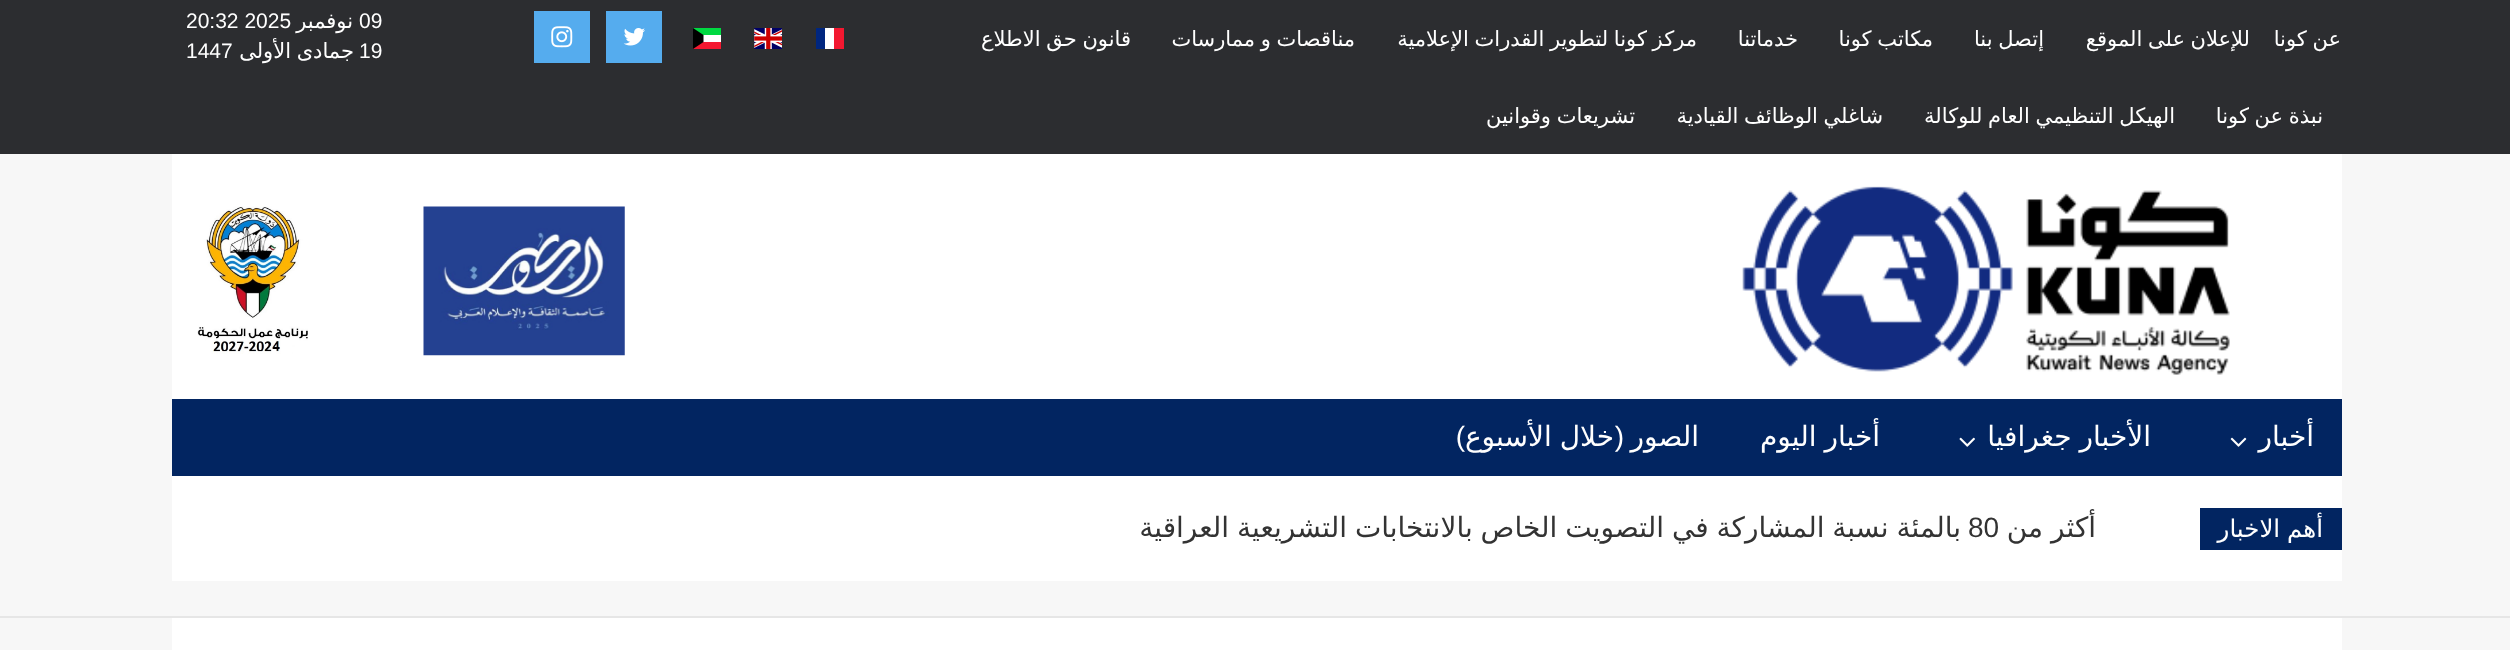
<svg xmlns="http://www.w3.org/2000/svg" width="2510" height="650">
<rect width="100%" height="100%" fill="#f7f7f7"/>
<rect width="2510" height="154" fill="#2c2d30"/>
<text x="2341" y="46" word-spacing="-1" style="font-family:DejaVu Sans;font-size:21px;direction:rtl;fill:#fff">عن كونا</text>
<text x="2250" y="46" word-spacing="-1" style="font-family:DejaVu Sans;font-size:21px;direction:rtl;fill:#fff">للإعلان على الموقع</text>
<text x="2044" y="46" word-spacing="-1" style="font-family:DejaVu Sans;font-size:21px;direction:rtl;fill:#fff">إتصل بنا</text>
<text x="1933" y="46" word-spacing="-1" style="font-family:DejaVu Sans;font-size:21px;direction:rtl;fill:#fff">مكاتب كونا</text>
<text x="1798" y="46" style="font-family:DejaVu Sans;font-size:21px;direction:rtl;fill:#fff">خدماتنا</text>
<text x="1697" y="46" word-spacing="-1" style="font-family:DejaVu Sans;font-size:21px;direction:rtl;fill:#fff">مركز كونا لتطوير القدرات الإعلامية</text>
<text x="1355" y="46" word-spacing="-1" style="font-family:DejaVu Sans;font-size:21px;direction:rtl;fill:#fff">مناقصات و ممارسات</text>
<text x="1131" y="46" word-spacing="-1" style="font-family:DejaVu Sans;font-size:21px;direction:rtl;fill:#fff">قانون حق الاطلاع</text>
<text x="2323" y="123" word-spacing="-1" style="font-family:DejaVu Sans;font-size:21px;direction:rtl;fill:#fff">نبذة عن كونا</text>
<text x="2175" y="123" word-spacing="-1" style="font-family:DejaVu Sans;font-size:21px;direction:rtl;fill:#fff">الهيكل التنظيمي العام للوكالة</text>
<text x="1883" y="123" word-spacing="-1" style="font-family:DejaVu Sans;font-size:21px;direction:rtl;fill:#fff">شاغلي الوظائف القيادية</text>
<text x="1635" y="123" word-spacing="-1" style="font-family:DejaVu Sans;font-size:21px;direction:rtl;fill:#fff">تشريعات وقوانين</text>
<rect x="825" y="28" width="9" height="21" fill="#fff"/>
<rect x="816" y="28" width="9" height="21" fill="#00267f"/>
<rect x="834" y="28" width="10" height="21" fill="#f31830"/>
<image x="754" y="28" width="28" height="21" href="media/1.png"/>
<rect x="703" y="35" width="18" height="7" fill="#fff"/>
<rect x="693" y="42" width="28" height="7" fill="#f31830"/>
<rect x="693" y="28" width="28" height="7" fill="#00d941"/>
<path d="M693 28v21l10.5-7v-7z" fill="#000" fill-rule="evenodd"/>
<rect x="606" y="11" width="56" height="52" fill="#55acee"/>
<image x="623" y="28" width="22" height="18" href="media/2.png"/>
<rect x="534" y="11" width="56" height="52" fill="#55acee"/>
<image x="551" y="26" width="22" height="22" href="media/3.png"/>
<text x="359" y="28" style="font-family:Liberation Sans;font-size:21px;fill:#fff">09</text>
<text x="353" y="28" style="font-family:DejaVu Sans;font-size:21px;direction:rtl;fill:#fff">نوفمبر</text>
<text x="186" y="28" style="font-family:Liberation Sans;font-size:21px;fill:#fff">20:32 2025</text>
<text x="359" y="58" style="font-family:Liberation Sans;font-size:21px;fill:#fff">19</text>
<text x="354" y="58" word-spacing="-1" style="font-family:DejaVu Sans;font-size:21px;direction:rtl;fill:#fff">جمادى الأولى</text>
<text x="186" y="58" style="font-family:Liberation Sans;font-size:21px;fill:#fff">1447</text>
<rect x="172" y="154" width="2170" height="245" fill="#fff"/>
<image x="1742" y="186" width="488" height="189" href="media/4.png"/>
<image x="423" y="206" width="202" height="150" href="media/5.png"/>
<image x="197" y="206" width="111" height="148" href="media/6.png"/>
<rect x="172" y="399" width="2170" height="77" fill="#022561"/>
<text x="2314" y="446" style="font-family:DejaVu Sans;font-size:28px;direction:rtl;fill:#fff">أخبار</text>
<image x="2230" y="437" width="17" height="10" href="media/7.png"/>
<text x="2151" y="446" word-spacing="-1" style="font-family:DejaVu Sans;font-size:28px;direction:rtl;fill:#fff">الأخبار جغرافيا</text>
<image x="1959" y="437" width="16" height="10" href="media/8.png"/>
<text x="1880" y="446" word-spacing="-1" style="font-family:DejaVu Sans;font-size:28px;direction:rtl;fill:#fff">أخبار اليوم</text>
<text x="1699" y="446" style="font-family:DejaVu Sans;font-size:28px;direction:rtl;fill:#fff">الصور</text>
<text x="1624" y="446" style="font-family:Liberation Sans;font-size:28px;direction:rtl;fill:#fff">(</text>
<text x="1614" y="446" word-spacing="-1" style="font-family:DejaVu Sans;font-size:28px;direction:rtl;fill:#fff">خلال الأسبوع</text>
<text x="1465" y="446" style="font-family:Liberation Sans;font-size:28px;direction:rtl;fill:#fff">)</text>
<rect y="616" width="2510" height="2" fill="#e6e6e6"/>
<rect x="172" y="476" width="2170" height="105" fill="#fff"/>
<rect x="2200" y="508" width="142" height="42" fill="#022561"/>
<text x="2323" y="537" word-spacing="-1" style="font-family:DejaVu Sans;font-size:24.5px;direction:rtl;fill:#fff">أهم الاخبار</text>
<text x="2096" y="537" word-spacing="-1" style="font-family:DejaVu Sans;font-size:28px;direction:rtl;fill:#333">أكثر من</text>
<text x="1968" y="537" style="font-family:Liberation Sans;font-size:28px;fill:#333">80</text>
<text x="1961" y="537" word-spacing="-1" style="font-family:DejaVu Sans;font-size:28px;direction:rtl;fill:#333">بالمئة نسبة المشاركة في التصويت الخاص بالانتخابات التشريعية العراقية</text>
<rect x="172" y="618" width="2170" height="32" fill="#fff"/>
</svg>
